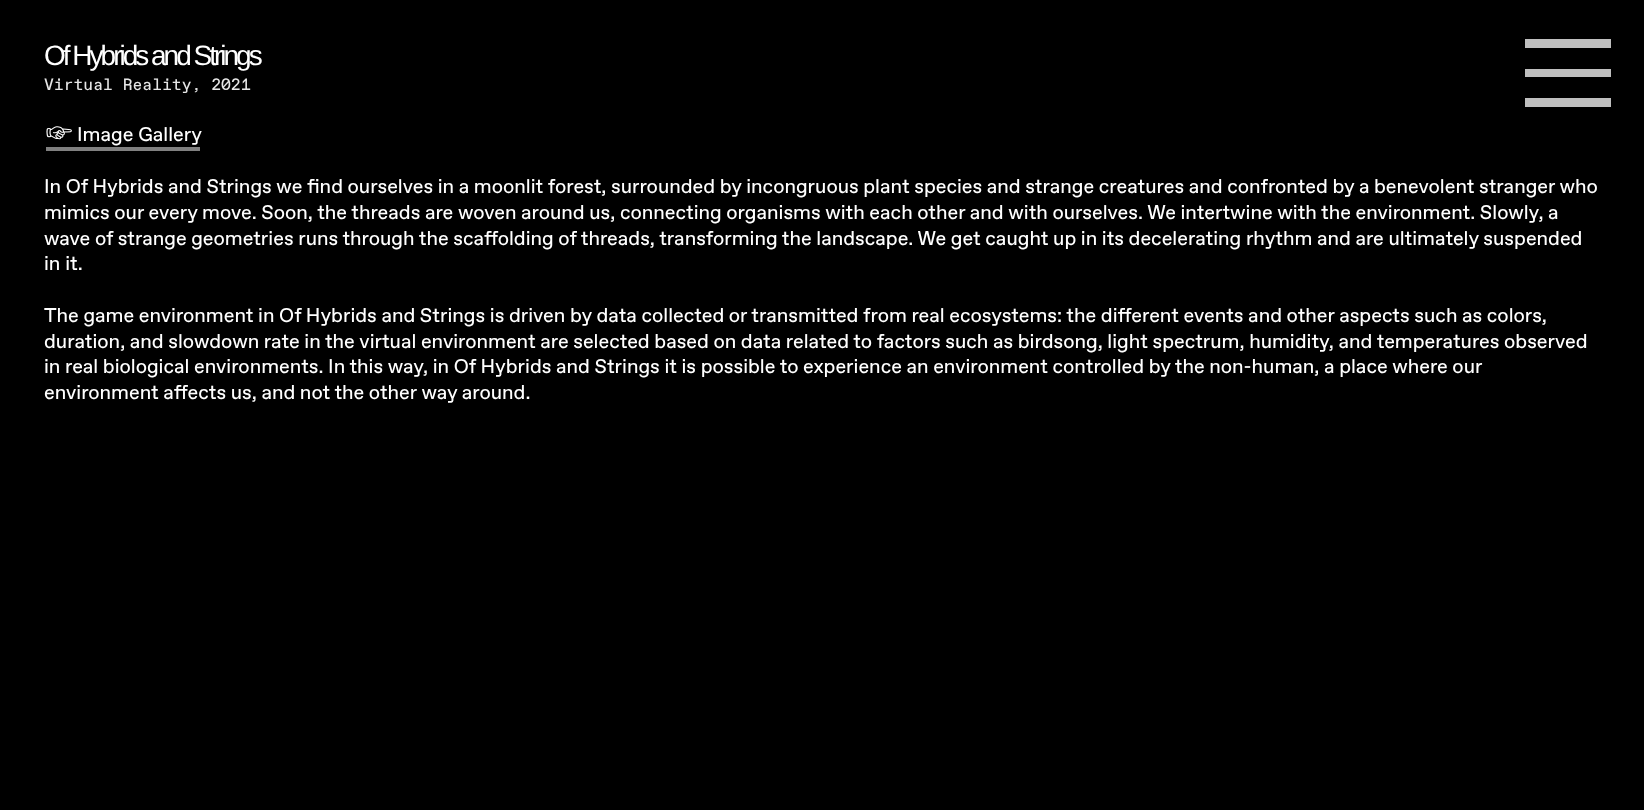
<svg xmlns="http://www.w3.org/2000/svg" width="1644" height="810">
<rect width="100%" height="100%" fill="#000"/>
<path d="M1611 39v9h-86v-9zm0 30v8h-86v-8zm0 29v9h-86v-9z" fill="#bfbfbf"/>
<text x="44" y="65" style="font-family:Liberation Sans;font-size:28px;letter-spacing:-3px;fill:#fff">Of Hybrids and Strings</text>
<text x="44" y="90" style="font-family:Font;font-size:16.4px;fill:#e6e6e6">Virtual Reality, 2021</text>
<image x="46" y="126" width="26" height="14" href="media/1.png"/>
<text x="77" y="141" style="font-family:'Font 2';font-size:19.88px;fill:#fff">Image Gallery</text>
<rect x="46" y="147" width="154" height="4" fill="#808080"/>
<text x="44" y="193" word-spacing="-0.25" style="font-family:'Font 2';font-size:19.88px;fill:#fff">In Of Hybrids and Strings we find ourselves in a moonlit forest, surrounded by incongruous plant species and strange creatures and confronted by a benevolent stranger who</text>
<text x="44" y="219" word-spacing="-0.25" style="font-family:'Font 2';font-size:19.88px;fill:#fff">mimics our every move. Soon, the threads are woven around us, connecting organisms with each other and with ourselves. We intertwine with the environment. Slowly, a</text>
<text x="44" y="245" word-spacing="-0.25" style="font-family:'Font 2';font-size:19.88px;fill:#fff">wave of strange geometries runs through the scaffolding of threads, transforming the landscape. We get caught up in its decelerating rhythm and are ultimately suspended</text>
<text x="44" y="270" style="font-family:'Font 2';font-size:19.88px;fill:#fff">in it.</text>
<text x="44" y="322" word-spacing="-0.25" style="font-family:'Font 2';font-size:19.88px;fill:#fff">The game environment in Of Hybrids and Strings is driven by data collected or transmitted from real ecosystems: the different events and other aspects such as colors,</text>
<text x="44" y="348" word-spacing="-0.25" style="font-family:'Font 2';font-size:19.88px;fill:#fff">duration, and slowdown rate in the virtual environment are selected based on data related to factors such as birdsong, light spectrum, humidity, and temperatures observed</text>
<text x="44" y="373" word-spacing="-0.25" style="font-family:'Font 2';font-size:19.88px;fill:#fff">in real biological environments. In this way, in Of Hybrids and Strings it is possible to experience an environment controlled by the non-human, a place where our</text>
<text x="44" y="399" word-spacing="-0.25" style="font-family:'Font 2';font-size:19.88px;fill:#fff">environment affects us, and not the other way around.</text>
</svg>
